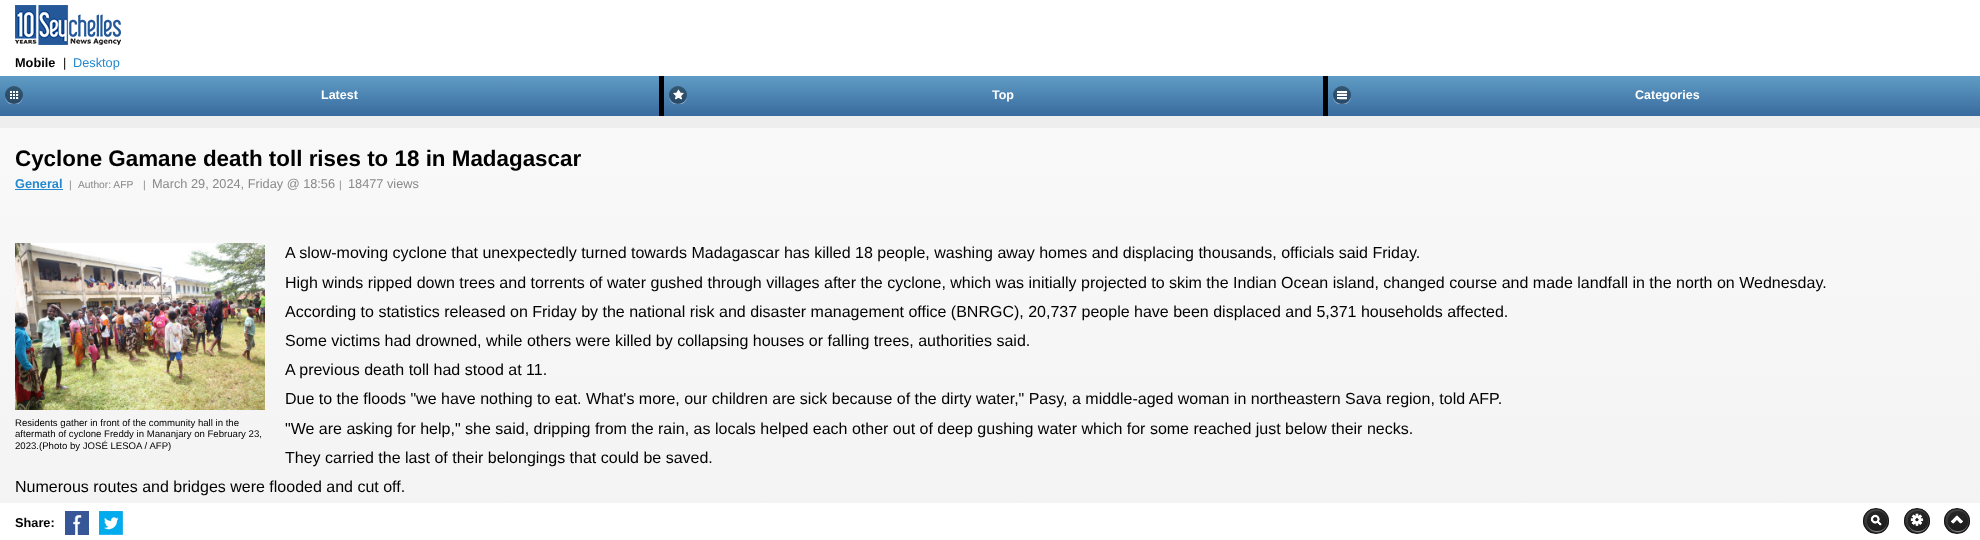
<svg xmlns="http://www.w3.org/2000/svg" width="1980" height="540">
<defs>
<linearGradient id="g1" gradientUnits="userSpaceOnUse" x1="330" y1="76" x2="330" y2="116"><stop offset="0" stop-color="#5f9cc5"/><stop offset="1" stop-color="#396b9e"/></linearGradient>
<clipPath id="clip1"><rect y="86" width="659" height="18"/></clipPath>
<linearGradient id="g2" gradientUnits="userSpaceOnUse" x1="994" y1="76" x2="994" y2="116"><stop offset="0" stop-color="#5f9cc5"/><stop offset="1" stop-color="#396b9e"/></linearGradient>
<clipPath id="clip2"><rect x="664" y="86" width="659" height="18"/></clipPath>
<linearGradient id="g3" gradientUnits="userSpaceOnUse" x1="1658" y1="76" x2="1658" y2="116"><stop offset="0" stop-color="#5f9cc5"/><stop offset="1" stop-color="#396b9e"/></linearGradient>
<clipPath id="clip3"><rect x="1328" y="86" width="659" height="18"/></clipPath>
<linearGradient id="g4" gradientUnits="userSpaceOnUse" x1="990" y1="128" x2="990" y2="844"><stop offset="0" stop-color="#f9f9f9"/><stop offset="1" stop-color="#eee"/></linearGradient>
<clipPath id="clip4"><rect x="1863" y="508" width="26" height="26" rx="13"/></clipPath>
<linearGradient id="g5" gradientUnits="userSpaceOnUse" x1="1876" y1="509" x2="1876" y2="533"><stop offset="0" stop-color="#444"/><stop offset="1" stop-color="#2d2d2d"/></linearGradient>
<clipPath id="clip5"><rect x="1904" y="508" width="26" height="26" rx="13"/></clipPath>
<linearGradient id="g6" gradientUnits="userSpaceOnUse" x1="1917" y1="509" x2="1917" y2="533"><stop offset="0" stop-color="#444"/><stop offset="1" stop-color="#2d2d2d"/></linearGradient>
<clipPath id="clip6"><rect x="1944" y="508" width="26" height="26" rx="13"/></clipPath>
<linearGradient id="g7" gradientUnits="userSpaceOnUse" x1="1957" y1="509" x2="1957" y2="533"><stop offset="0" stop-color="#444"/><stop offset="1" stop-color="#2d2d2d"/></linearGradient>
</defs>
<rect width="100%" height="100%" fill="#eee"/>
<rect width="1980" height="76" fill="#fff"/>
<image x="15" y="5" width="106" height="40" href="media/1.png"/>
<text x="15" y="67" style="font-family:Liberation Sans;font-size:12.75px;font-weight:bold;fill:#000">Mobile</text>
<text x="63" y="67" style="font-family:Liberation Sans;font-size:12.75px;fill:#000">|</text>
<text x="73" y="67" style="font-family:Liberation Sans;font-size:12.75px;fill:#2489ce">Desktop</text>
<rect x="659" y="76" width="669" height="40" fill="#000"/>
<rect y="76" width="659" height="40" fill="url(#g1)"/>
<g clip-path="url(#clip1)">
<path d="M5 95.5c-.5 12.5 18.5 12.5 18 0c-.5 11-17.5 11-18 0z" fill="#ffffff66"/>
</g>
<circle cx="14" cy="95" r="9" fill="#00000066"/>
<image x="10" y="91" width="9" height="9" href="media/2.png"/>
<text x="321" y="99" style="font-family:Liberation Sans;font-size:12.5px;font-weight:bold;fill:#fff">Latest</text>
<rect x="664" y="76" width="659" height="40" fill="url(#g2)"/>
<g clip-path="url(#clip2)">
<path d="M687 95.5c-.5 11-17.5 11-18 0c-.5 12.5 18.5 12.5 18 0z" fill="#ffffff66"/>
</g>
<circle cx="678" cy="95" r="9" fill="#00000066"/>
<image x="673" y="89" width="11" height="11" href="media/3.png"/>
<text x="992" y="99" style="font-family:Liberation Sans;font-size:12.5px;font-weight:bold;fill:#fff">Top</text>
<rect x="1328" y="76" width="652" height="40" fill="url(#g3)"/>
<g clip-path="url(#clip3)">
<path d="M1351 95.5c-.5 11-17.5 11-18 0c-.5 12.5 18.5 12.5 18 0z" fill="#ffffff66"/>
</g>
<circle cx="1342" cy="95" r="9" fill="#00000066"/>
<image x="1337" y="91" width="10" height="9" href="media/4.png"/>
<text x="1635" y="99" style="font-family:Liberation Sans;font-size:12.5px;font-weight:bold;fill:#fff">Categories</text>
<rect y="128" width="1980" height="375" fill="url(#g4)"/>
<text x="15" y="166" style="font-family:Liberation Sans;font-size:22.4px;font-weight:bold;fill:#000">Cyclone Gamane death toll rises to 18 in Madagascar</text>
<text x="15" y="188" style="font-family:Liberation Sans;font-size:12.75px;font-weight:bold;fill:#2489ce">General</text>
<rect x="15" y="189" width="48" height="1" fill="#2489ce"/>
<text x="69" y="188" style="font-family:Liberation Sans;font-size:10.25px;fill:#898989">|</text>
<text x="78" y="188" style="font-family:Liberation Sans;font-size:10.25px;fill:#898989">Author: AFP</text>
<text x="143" y="188" style="font-family:Liberation Sans;font-size:10.25px;fill:#898989">|</text>
<text x="152" y="188" style="font-family:Liberation Sans;font-size:12.75px;fill:#898989">March 29, 2024, Friday @ 18:56</text>
<text x="339" y="188" style="font-family:Liberation Sans;font-size:10.25px;fill:#898989">|</text>
<text x="348" y="188" style="font-family:Liberation Sans;font-size:12.75px;fill:#898989">18477 views</text>
<text x="285" y="258" style="font-family:Liberation Sans;font-size:16px;fill:#000">A slow-moving cyclone that unexpectedly turned towards Madagascar has killed 18 people, washing away homes and displacing thousands, officials said Friday.</text>
<text x="285" y="288" style="font-family:Liberation Sans;font-size:16px;fill:#000">High winds ripped down trees and torrents of water gushed through villages after the cyclone, which was initially projected to skim the Indian Ocean island, changed course and made landfall in the north on Wednesday.</text>
<text x="285" y="317" style="font-family:Liberation Sans;font-size:16px;fill:#000">According to statistics released on Friday by the national risk and disaster management office (BNRGC), 20,737 people have been displaced and 5,371 households affected.</text>
<text x="285" y="346" style="font-family:Liberation Sans;font-size:16px;fill:#000">Some victims had drowned, while others were killed by collapsing houses or falling trees, authorities said.</text>
<text x="285" y="375" style="font-family:Liberation Sans;font-size:16px;fill:#000">A previous death toll had stood at 11.</text>
<text x="285" y="404" style="font-family:Liberation Sans;font-size:16px;fill:#000">Due to the floods "we have nothing to eat. What's more, our children are sick because of the dirty water," Pasy, a middle-aged woman in northeastern Sava region, told AFP.</text>
<text x="285" y="434" style="font-family:Liberation Sans;font-size:16px;fill:#000">"We are asking for help," she said, dripping from the rain, as locals helped each other out of deep gushing water which for some reached just below their necks.</text>
<text x="285" y="463" style="font-family:Liberation Sans;font-size:16px;fill:#000">They carried the last of their belongings that could be saved.</text>
<text x="15" y="492" style="font-family:Liberation Sans;font-size:16px;fill:#000">Numerous routes and bridges were flooded and cut off.</text>
<image x="15" y="243" width="250" height="167" href="media/5.png"/>
<text x="15" y="426" style="font-family:Liberation Sans;font-size:9.6px;fill:#000">Residents gather in front of the community hall in the</text>
<text x="15" y="437" style="font-family:Liberation Sans;font-size:9.6px;fill:#000">aftermath of cyclone Freddy in Mananjary on February 23,</text>
<text x="15" y="449" style="font-family:Liberation Sans;font-size:9.6px;fill:#000">2023.(Photo by JOSÉ LESOA / AFP)</text>
<rect y="503" width="1980" height="37" fill="#fff"/>
<text x="15" y="527" style="font-family:Liberation Sans;font-size:12.75px;font-weight:bold;fill:#000">Share:</text>
<image x="65" y="511" width="24" height="24" href="media/6.png"/>
<image x="99" y="511" width="24" height="24" href="media/7.png"/>
<g clip-path="url(#clip4)">
<rect x="1863" y="509" width="26" height="24" fill="url(#g5)"/>
</g>
<circle cx="1876" cy="521" r="12.5" fill="none" stroke="#111"/>
<path d="M1867 522c0 13.5 20 13.5 20 0c0 12-20 12-20 0z" fill="#ffffff66"/>
<rect x="1867" y="511" width="20" height="20" rx="9" fill="#00000066"/>
<image x="1870" y="514" width="12" height="12" href="media/8.png"/>
<g clip-path="url(#clip5)">
<rect x="1904" y="509" width="26" height="24" fill="url(#g6)"/>
</g>
<circle cx="1917" cy="521" r="12.5" fill="none" stroke="#111"/>
<path d="M1908 522c0 13.5 20 13.5 20 0c0 12-20 12-20 0z" fill="#ffffff66"/>
<rect x="1908" y="511" width="20" height="20" rx="9" fill="#00000066"/>
<image x="1910" y="513" width="14" height="13" href="media/9.png"/>
<g clip-path="url(#clip6)">
<rect x="1944" y="509" width="26" height="24" fill="url(#g7)"/>
</g>
<circle cx="1957" cy="521" r="12.5" fill="none" stroke="#111"/>
<path d="M1948 522c0 13.5 20 13.5 20 0c0 12-20 12-20 0z" fill="#ffffff66"/>
<rect x="1948" y="511" width="20" height="20" rx="9" fill="#00000066"/>
<image x="1951" y="515" width="12" height="9" href="media/10.png"/>
</svg>
